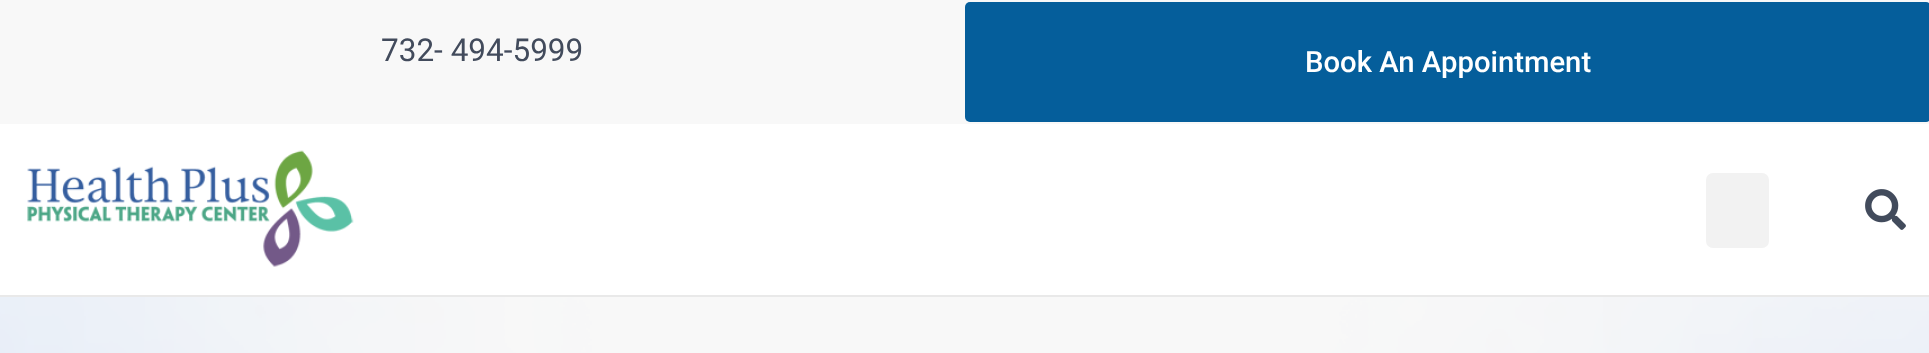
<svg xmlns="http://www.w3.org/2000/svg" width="1929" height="353">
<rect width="100%" height="100%" fill="#fff"/>
<rect width="1929" height="124" fill="#f8f8f8"/>
<text x="381" y="61" style="font-family:Roboto;font-size:31.5px;fill:#424b5c">732- 494-5999</text>
<rect x="965" y="2" width="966" height="120" rx="5" fill="#055e9b"/>
<text x="1305" y="72" style="font-family:Roboto;font-size:29.25px;font-weight:500;fill:#fff">Book An Appointment</text>
<rect y="295" width="1929" height="2" fill="#e9e9e9"/>
<image x="27" y="150" width="327" height="117" href="media/1.png"/>
<rect x="1706" y="173" width="63" height="75" rx="7" fill="#f2f2f2"/>
<image x="1865" y="189" width="41" height="41" href="media/2.png"/>
<image x="0" y="297" width="1929" height="56" href="media/3.png"/>
</svg>
